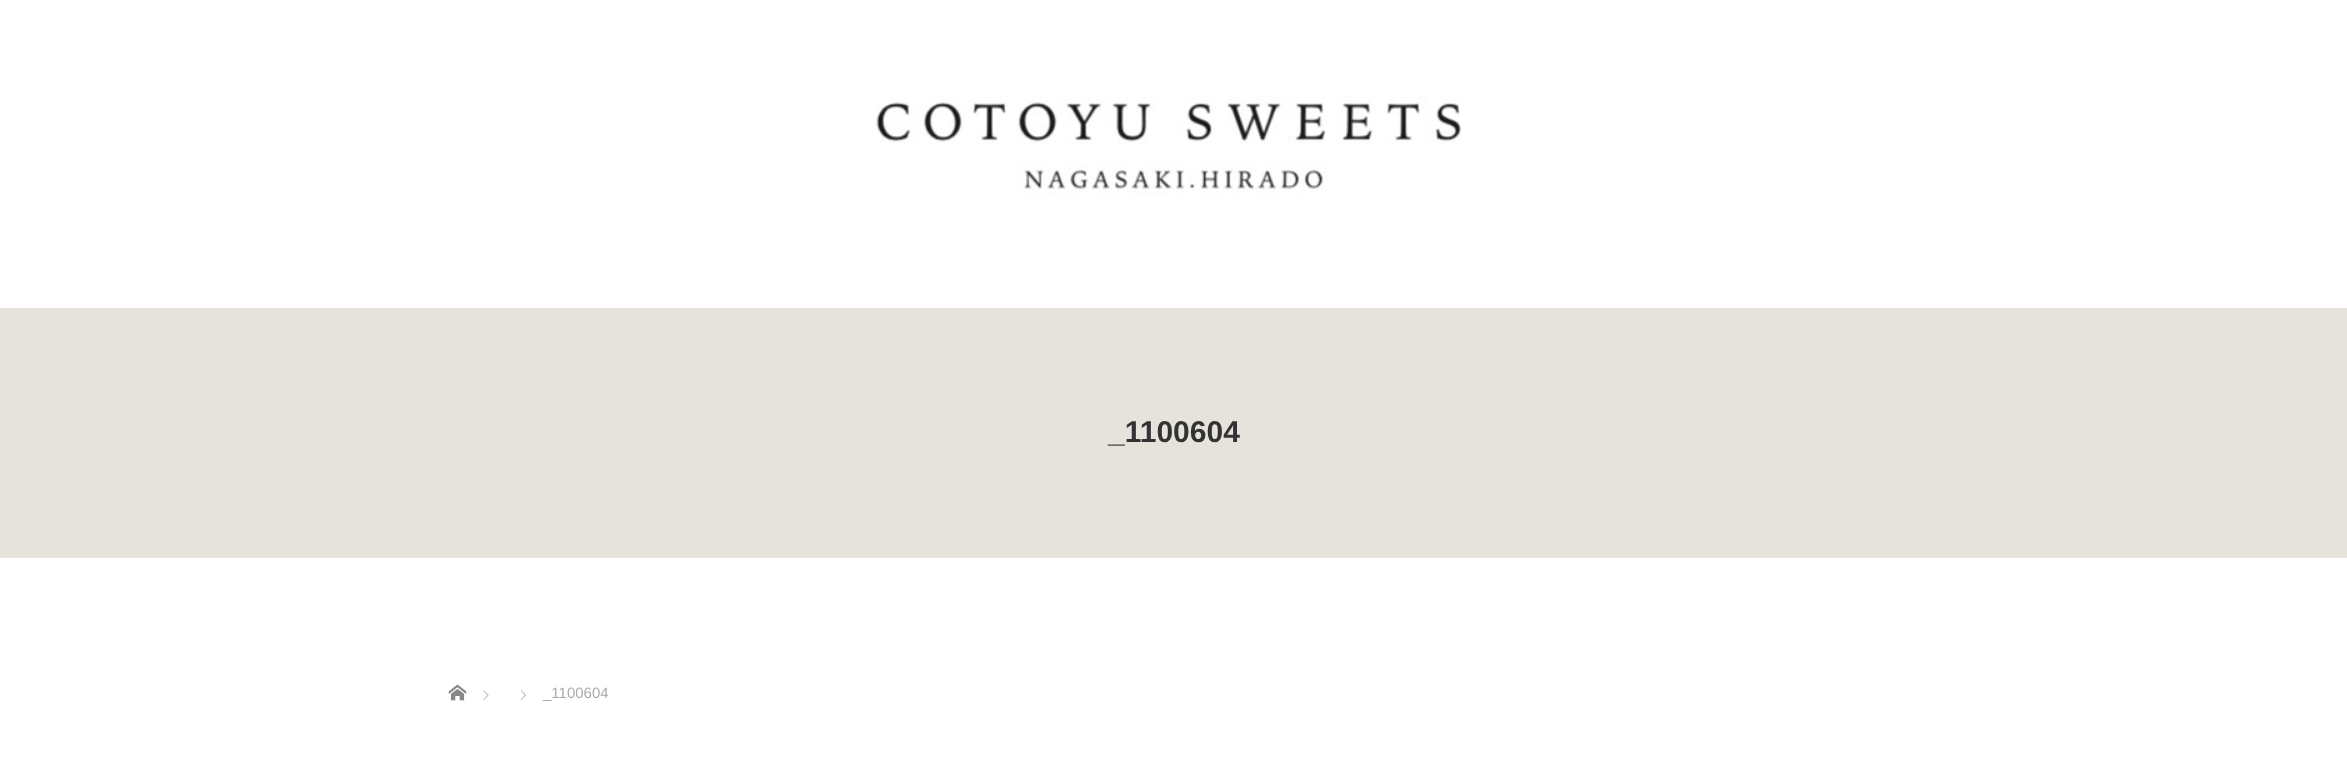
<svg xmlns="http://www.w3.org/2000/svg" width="2347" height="758">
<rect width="100%" height="100%" fill="#fff"/>
<image x="876" y="95" width="586" height="100" href="media/1.png"/>
<rect y="308" width="2347" height="250" fill="#e6e3dc"/>
<text x="1108" y="442" style="font-family:Liberation Sans;font-size:30px;font-weight:bold;fill:#333">_1100604</text>
<image x="448" y="684" width="19" height="17" href="media/2.png"/>
<image x="483" y="690" width="6" height="10" href="media/3.png"/>
<image x="520" y="690" width="6" height="10" href="media/4.png"/>
<text x="543" y="698" style="font-family:Liberation Sans;font-size:15px;fill:#aaa">_1100604</text>
</svg>
